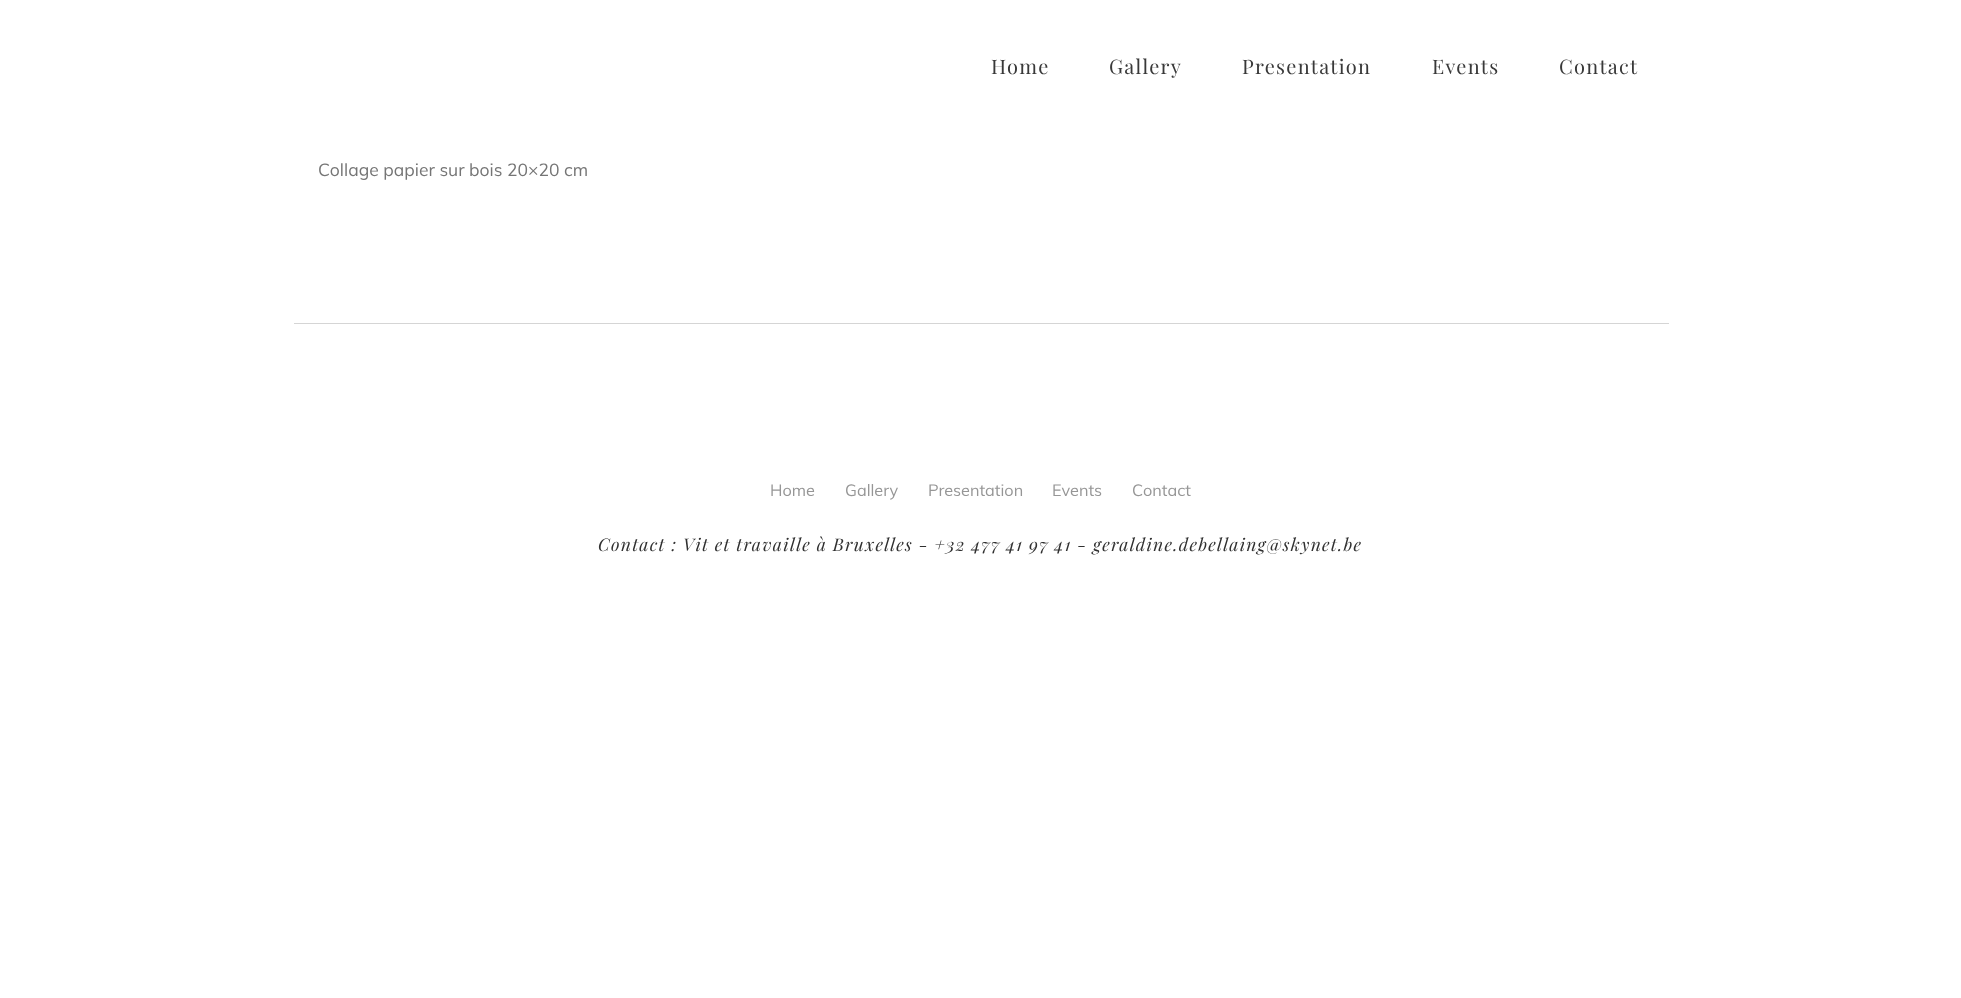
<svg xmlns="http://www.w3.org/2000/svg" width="1961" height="998">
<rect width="100%" height="100%" fill="#fff"/>
<text x="991" y="74" style="font-family:Playfair Display;font-size:20px;letter-spacing:1.25px;fill:#393939">Home</text>
<text x="1109" y="74" style="font-family:Playfair Display;font-size:20px;letter-spacing:1.25px;fill:#393939">Gallery</text>
<text x="1242" y="74" style="font-family:Playfair Display;font-size:20px;letter-spacing:1.25px;fill:#393939">Presentation</text>
<text x="1432" y="74" style="font-family:Playfair Display;font-size:20px;letter-spacing:1.25px;fill:#393939">Events</text>
<text x="1559" y="74" style="font-family:Playfair Display;font-size:20px;letter-spacing:1.25px;fill:#393939">Contact</text>
<text x="318" y="176" style="font-family:Muli;font-size:17.5px;fill:#757575">Collage papier sur bois 20×20 cm</text>
<rect x="294" y="323" width="1375" height="1" fill="#d5d5d5"/>
<text x="770" y="496" style="font-family:Muli;font-size:16.25px;fill:#969696">Home</text>
<text x="845" y="496" style="font-family:Muli;font-size:16.25px;fill:#969696">Gallery</text>
<text x="928" y="496" style="font-family:Muli;font-size:16.25px;fill:#969696">Presentation</text>
<text x="1052" y="496" style="font-family:Muli;font-size:16.25px;fill:#969696">Events</text>
<text x="1132" y="496" style="font-family:Muli;font-size:16.25px;fill:#969696">Contact</text>
<text x="598" y="551" style="font-family:Playfair Display;font-size:17.5px;font-style:italic;letter-spacing:1.25px;fill:#303030">Contact : Vit et travaille à Bruxelles - +32 477 41 97 41 - geraldine.debellaing@skynet.be</text>
</svg>
